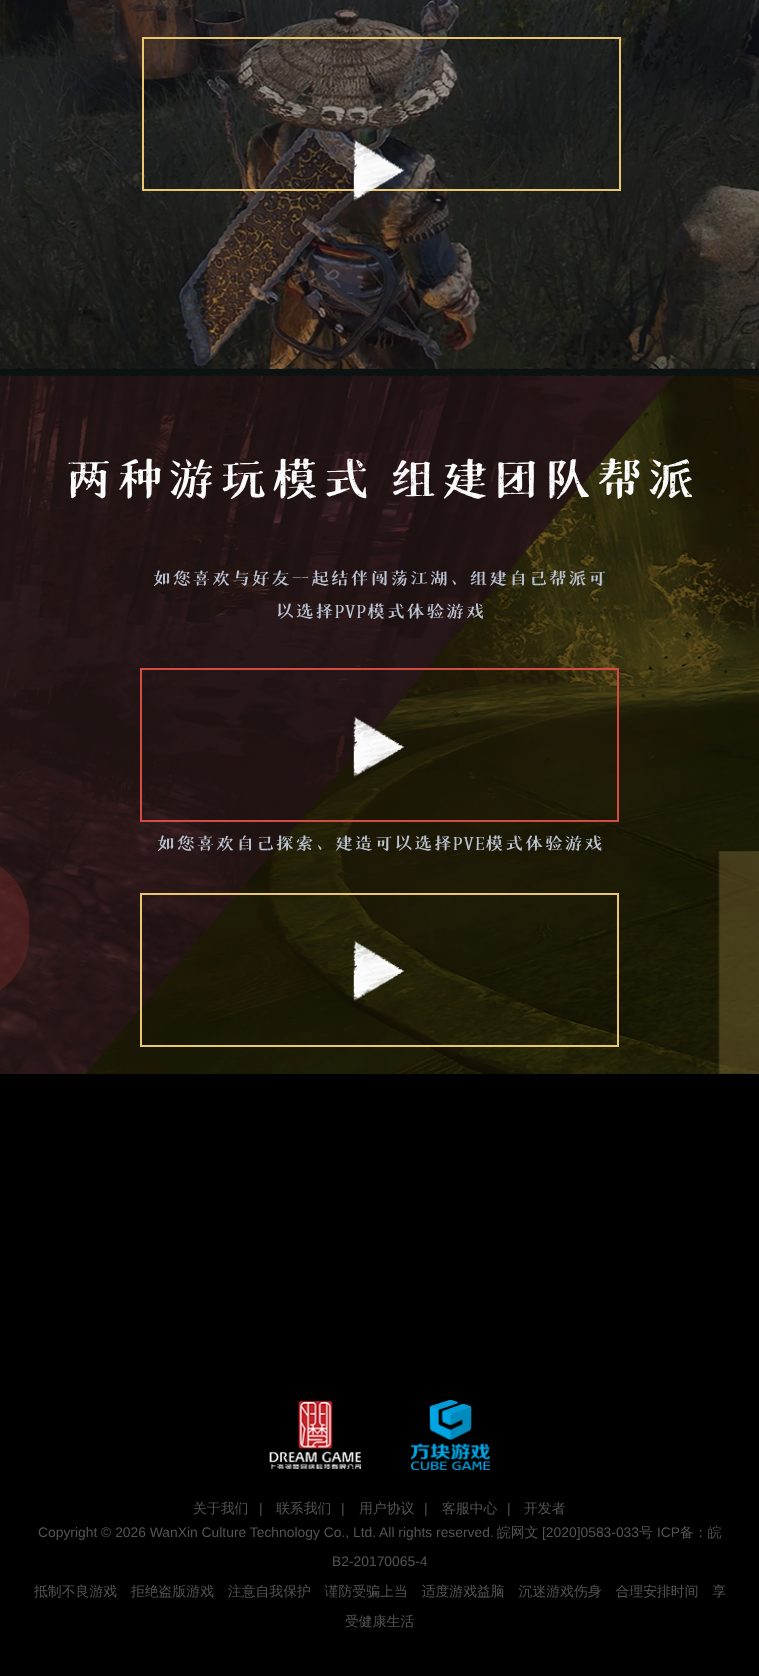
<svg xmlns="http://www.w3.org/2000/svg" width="759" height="1676">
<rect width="100%" height="100%" fill="#000"/>
<image x="0" y="0" width="759" height="370" href="media/1.png"/>
<rect x="143" y="38" width="477" height="152" fill="none" stroke="#e8c76e" stroke-width="2"/>
<image x="353" y="139" width="52" height="63" href="media/2.png"/>
<image x="0" y="375" width="759" height="699" href="media/3.png"/>
<image x="0" y="368" width="759" height="8" href="media/4.png"/>
<text x="63" y="494" style="font-family:'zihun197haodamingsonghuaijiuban';font-size:51.4px;fill:#fbfbfb">两种游玩模式 组建团队帮派</text>
<text x="152" y="584" style="font-family:'zihun197haodamingsonghuaijiuban';font-size:19.75px;fill:#bdc5d2">如您喜欢与好友一起结伴闯荡江湖、组建自己帮派可</text>
<text x="275" y="617" style="font-family:'zihun197haodamingsonghuaijiuban';font-size:19.75px;fill:#bdc5d2">以选择PVP模式体验游戏</text>
<rect x="141" y="669" width="477" height="152" fill="none" stroke="#d34d44" stroke-width="2"/>
<image x="353" y="716" width="52" height="62" href="media/5.png"/>
<text x="156" y="849" style="font-family:'zihun197haodamingsonghuaijiuban';font-size:19.75px;fill:#bdc5d2">如您喜欢自己探索、建造可以选择PVE模式体验游戏</text>
<rect x="141" y="894" width="477" height="152" fill="none" stroke="#e8c76e" stroke-width="2"/>
<image x="353" y="940" width="52" height="62" href="media/6.png"/>
<image x="269" y="1401" width="92" height="68" href="media/7.png"/>
<image x="411" y="1400" width="79" height="70" href="media/8.png"/>
<text x="193" y="1513" style="font-family:WenQuanYi Zen Hei;font-size:13.85px;font-weight:500;fill:#545454">关于我们</text>
<text x="259" y="1513" style="font-family:Liberation Sans;font-size:13.85px;fill:#545454">|</text>
<text x="276" y="1513" style="font-family:WenQuanYi Zen Hei;font-size:13.85px;font-weight:500;fill:#545454">联系我们</text>
<text x="341" y="1513" style="font-family:Liberation Sans;font-size:13.85px;fill:#545454">|</text>
<text x="359" y="1513" style="font-family:WenQuanYi Zen Hei;font-size:13.85px;font-weight:500;fill:#545454">用户协议</text>
<text x="424" y="1513" style="font-family:Liberation Sans;font-size:13.85px;fill:#545454">|</text>
<text x="442" y="1513" style="font-family:WenQuanYi Zen Hei;font-size:13.85px;font-weight:500;fill:#545454">客服中心</text>
<text x="507" y="1513" style="font-family:Liberation Sans;font-size:13.85px;fill:#545454">|</text>
<text x="524" y="1513" style="font-family:WenQuanYi Zen Hei;font-size:13.85px;font-weight:500;fill:#545454">开发者</text>
<text x="38" y="1537" style="font-family:Liberation Sans;font-size:13.85px;fill:#545454">Copyright © 2026 WanXin Culture Technology Co., Ltd. All rights reserved.</text>
<text x="497" y="1537" style="font-family:WenQuanYi Zen Hei;font-size:13.85px;font-weight:500;fill:#545454">皖网文</text>
<text x="542" y="1537" style="font-family:Liberation Sans;font-size:13.85px;fill:#545454">[2020]0583-033</text>
<text x="639" y="1537" style="font-family:WenQuanYi Zen Hei;font-size:13.85px;font-weight:500;fill:#545454">号</text>
<text x="657" y="1537" style="font-family:Liberation Sans;font-size:13.85px;fill:#545454">ICP</text>
<text x="680" y="1537" style="font-family:WenQuanYi Zen Hei;font-size:13.85px;font-weight:500;fill:#545454">备：皖</text>
<text x="332" y="1566" style="font-family:Liberation Sans;font-size:13.85px;fill:#545454">B2-20170065-4</text>
<text x="34" y="1596" style="font-family:WenQuanYi Zen Hei;font-size:13.85px;font-weight:500;fill:#545454">抵制不良游戏　拒绝盗版游戏　注意自我保护　谨防受骗上当　适度游戏益脑　沉迷游戏伤身　合理安排时间　享</text>
<text x="345" y="1626" style="font-family:WenQuanYi Zen Hei;font-size:13.85px;font-weight:500;fill:#545454">受健康生活</text>
</svg>
